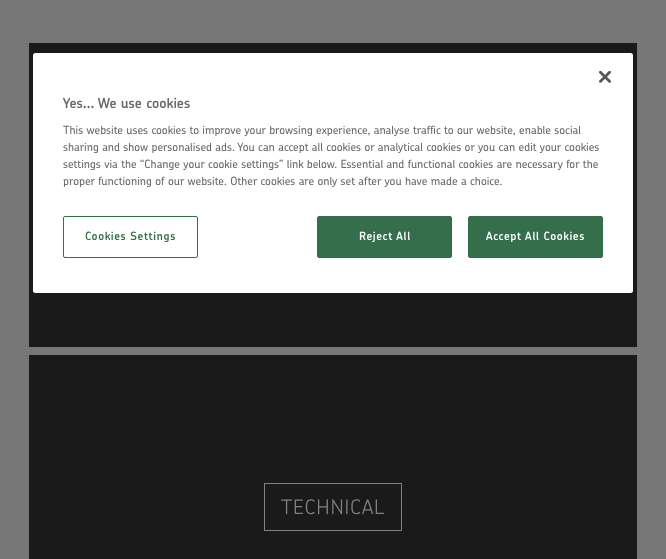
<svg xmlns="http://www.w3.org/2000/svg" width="666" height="559">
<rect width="100%" height="100%" fill="#777"/>
<rect x="29" y="43" width="608" height="304" fill="#1b1a1a"/>
<rect x="33" y="53" width="600" height="240" rx="2.5" fill="#fff"/>
<image x="599" y="71" width="12" height="12" href="media/1.png"/>
<text x="63" y="108" style="font-family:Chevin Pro;font-size:14px;font-weight:600;fill:#696969">Yes… We use cookies</text>
<text x="63" y="134" style="font-family:Chevin Pro;font-size:11.4px;font-weight:500;fill:#696969">This website uses cookies to improve your browsing experience, analyse traffic to our website, enable social</text>
<text x="63" y="151" style="font-family:Chevin Pro;font-size:11.4px;font-weight:500;fill:#696969">sharing and show personalised ads. You can accept all cookies or analytical cookies or you can edit your cookies</text>
<text x="63" y="168" style="font-family:Chevin Pro;font-size:11.4px;font-weight:500;fill:#696969">settings via the “Change your cookie settings” link below. Essential and functional cookies are necessary for the</text>
<text x="63" y="185" style="font-family:Chevin Pro;font-size:11.4px;font-weight:500;fill:#696969">proper functioning of our website. Other cookies are only set after you have made a choice.</text>
<rect x="63.5" y="216.5" width="134" height="41" rx="1.5" fill="none" stroke="#346e4a"/>
<text x="85" y="240" style="font-family:Chevin Pro;font-size:11.4px;font-weight:600;letter-spacing:0.6px;fill:#346e4a">Cookies Settings</text>
<rect x="317.5" y="216.5" width="134" height="41" rx="1.5" fill="#346e4a" stroke="#346e4a"/>
<text x="359" y="240" style="font-family:Chevin Pro;font-size:11.4px;font-weight:600;letter-spacing:0.6px;fill:#fff">Reject All</text>
<rect x="468.5" y="216.5" width="134" height="41" rx="1.5" fill="#346e4a" stroke="#346e4a"/>
<text x="486" y="240" style="font-family:Chevin Pro;font-size:11.4px;font-weight:600;letter-spacing:0.6px;fill:#fff">Accept All Cookies</text>
<rect x="29" y="355" width="608" height="204" fill="#1b1a1a"/>
<rect x="264.5" y="483.5" width="137" height="47" fill="none" stroke="#808080"/>
<text x="281" y="514" style="font-family:Chevin Pro;font-size:20px;font-weight:300;letter-spacing:0.75px;fill:#808080">TECHNICAL</text>
</svg>
